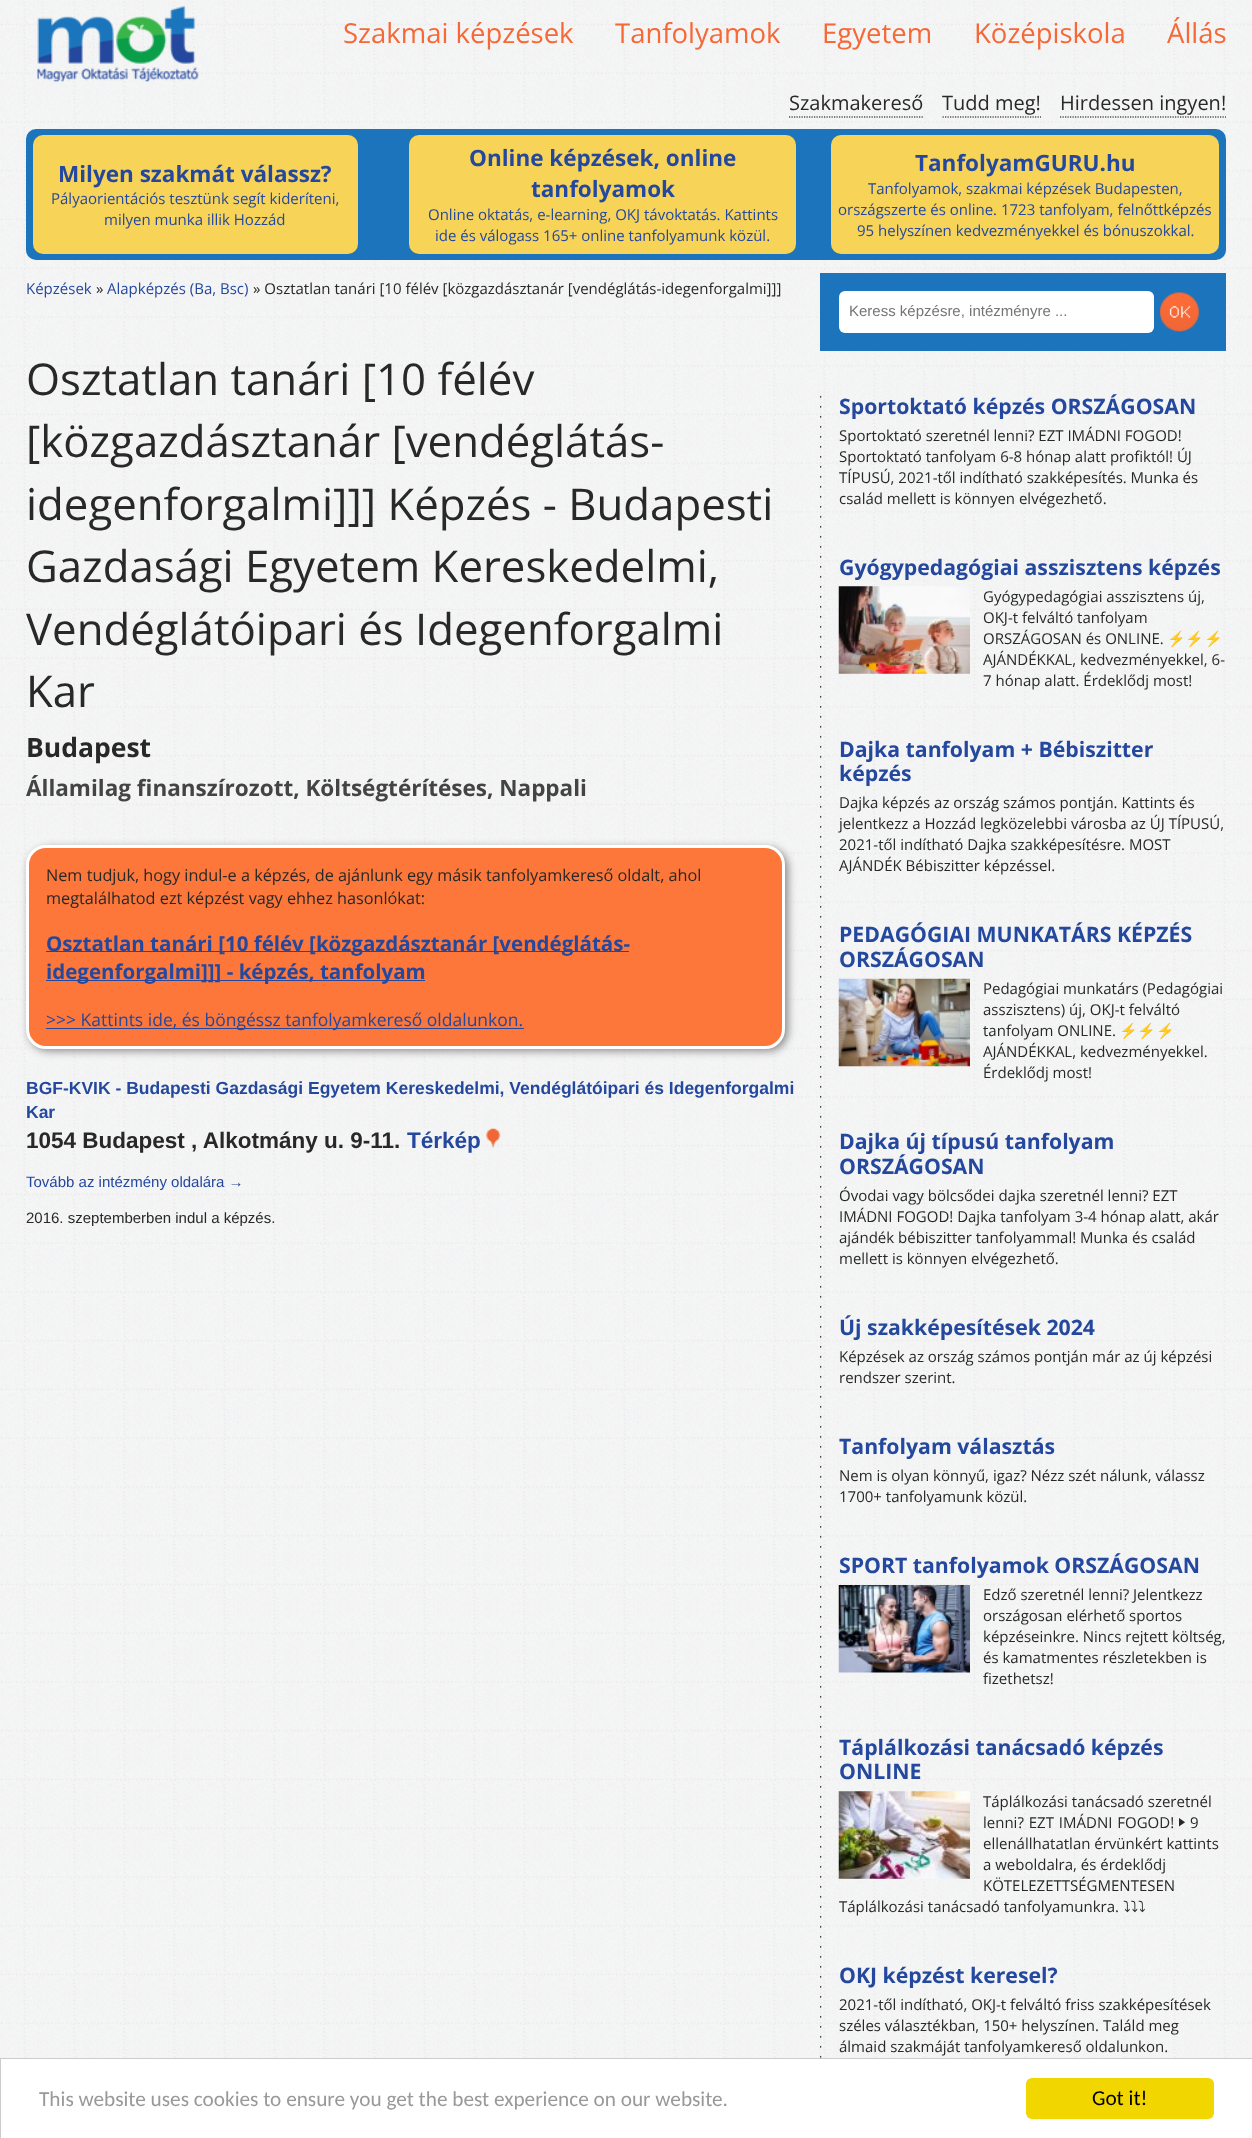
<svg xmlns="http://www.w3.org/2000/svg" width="1252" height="2138">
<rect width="100%" height="100%" fill="#fff"/>
<image x="0" y="0" width="1252" height="2058" href="media/1.png"/>
<image x="28" y="1" width="174" height="81" href="media/2.png"/>
<text x="343" y="43" style="font-family:Open Sans;font-size:27.5px;fill:#f66836">Szakmai képzések</text>
<text x="615" y="43" style="font-family:Open Sans;font-size:27.5px;fill:#f66836">Tanfolyamok</text>
<text x="822" y="43" style="font-family:Open Sans;font-size:27.5px;fill:#f66836">Egyetem</text>
<text x="974" y="43" style="font-family:Open Sans;font-size:27.5px;fill:#f66836">Középiskola</text>
<text x="1167" y="43" style="font-family:Open Sans;font-size:27.5px;fill:#f66836">Állás</text>
<text x="789" y="110" style="font-family:Open Sans;font-size:20px;fill:#282828">Szakmakereső</text>
<path d="M789 117h135" fill="none" stroke="#000" stroke-width="1.2" stroke-dasharray="1.25 1.25"/>
<text x="942" y="110" style="font-family:Open Sans;font-size:20px;fill:#282828">Tudd meg!</text>
<path d="M942.5 117h98.5" fill="none" stroke="#000" stroke-width="1.2" stroke-dasharray="1.25 1.25"/>
<text x="1060" y="110" style="font-family:Open Sans;font-size:20px;fill:#282828">Hirdessen ingyen!</text>
<path d="M1060 117h166" fill="none" stroke="#000" stroke-width="1.2" stroke-dasharray="1.25 1.25"/>
<rect x="26" y="129" width="1200" height="131" rx="10" fill="#1c75bc"/>
<rect x="33" y="135" width="325" height="119" rx="10" fill="#f7d358"/>
<text x="58" y="182" style="font-family:Open Sans;font-size:22.5px;font-weight:bold;fill:#24489e">Milyen szakmát válassz?</text>
<text x="51" y="204" style="font-family:Open Sans;font-size:15px;fill:#24489e">Pályaorientációs tesztünk segít kideríteni,</text>
<text x="104" y="225" style="font-family:Open Sans;font-size:15px;fill:#24489e">milyen munka illik Hozzád</text>
<rect x="409" y="135" width="387" height="119" rx="10" fill="#f7d358"/>
<text x="469" y="166" style="font-family:Open Sans;font-size:22.5px;font-weight:bold;fill:#24489e">Online képzések, online</text>
<text x="531" y="197" style="font-family:Open Sans;font-size:22.5px;font-weight:bold;fill:#24489e">tanfolyamok</text>
<text x="428" y="220" style="font-family:Open Sans;font-size:15px;fill:#24489e">Online oktatás, e-learning, OKJ távoktatás. Kattints</text>
<text x="435" y="241" style="font-family:Open Sans;font-size:15px;fill:#24489e">ide és válogass 165+ online tanfolyamunk közül.</text>
<rect x="831" y="135" width="388" height="119" rx="10" fill="#f7d358"/>
<text x="915" y="171" style="font-family:Open Sans;font-size:22.5px;font-weight:bold;fill:#24489e">TanfolyamGURU.hu</text>
<text x="868" y="194" style="font-family:Open Sans;font-size:15px;fill:#24489e">Tanfolyamok, szakmai képzések Budapesten,</text>
<text x="838" y="215" style="font-family:Open Sans;font-size:15px;fill:#24489e">országszerte és online. 1723 tanfolyam, felnőttképzés</text>
<text x="857" y="236" style="font-family:Open Sans;font-size:15px;fill:#24489e">95 helyszínen kedvezményekkel és bónuszokkal.</text>
<text x="26" y="294" style="font-family:Open Sans;font-size:15px;fill:#24489e">Képzések</text>
<text x="96" y="294" style="font-family:Open Sans;font-size:15px;fill:#282828">»</text>
<text x="107" y="294" style="font-family:Open Sans;font-size:15px;fill:#24489e">Alapképzés (Ba, Bsc)</text>
<text x="253" y="294" style="font-family:Open Sans;font-size:15px;fill:#282828">» Osztatlan tanári [10 félév [közgazdásztanár [vendéglátás-idegenforgalmi]]]</text>
<text x="26" y="395" style="font-family:Open Sans;font-size:43.75px;fill:#282828">Osztatlan tanári [10 félév</text>
<text x="26" y="457" style="font-family:Open Sans;font-size:43.75px;fill:#282828">[közgazdásztanár [vendéglátás-</text>
<text x="26" y="520" style="font-family:Open Sans;font-size:43.75px;fill:#282828">idegenforgalmi]]] Képzés - Budapesti</text>
<text x="26" y="582" style="font-family:Open Sans;font-size:43.75px;fill:#282828">Gazdasági Egyetem Kereskedelmi,</text>
<text x="26" y="645" style="font-family:Open Sans;font-size:43.75px;fill:#282828">Vendéglátóipari és Idegenforgalmi</text>
<text x="26" y="707" style="font-family:Open Sans;font-size:43.75px;fill:#282828">Kar</text>
<text x="26" y="757" style="font-family:Open Sans;font-size:26.5px;font-weight:bold;fill:#282828">Budapest</text>
<text x="26" y="796" style="font-family:Open Sans;font-size:22.5px;font-weight:bold;fill:#444">Államilag finanszírozott, Költségtérítéses, Nappali</text>
<rect x="29" y="848" width="759" height="203" rx="20" fill="#888" filter="blur(4px)"/>
<rect x="27.5" y="846.5" width="756" height="201" rx="18.5" fill="#fc7739" stroke="#fff" stroke-width="3"/>
<text x="46" y="881" style="font-family:Open Sans;font-size:16.25px;fill:#282828">Nem tudjuk, hogy indul-e a képzés, de ajánlunk egy másik tanfolyamkereső oldalt, ahol</text>
<text x="46" y="904" style="font-family:Open Sans;font-size:16.25px;fill:#282828">megtalálhatod ezt képzést vagy ehhez hasonlókat:</text>
<rect x="46" y="951" width="583" height="1" fill="#24489e"/>
<text x="46" y="951" style="font-family:Open Sans;font-size:20.5px;font-weight:bold;fill:#24489e">Osztatlan tanári [10 félév [közgazdásztanár [vendéglátás-</text>
<rect x="46" y="980" width="379" height="1" fill="#24489e"/>
<text x="46" y="979" style="font-family:Open Sans;font-size:20.5px;font-weight:bold;fill:#24489e">idegenforgalmi]]] - képzés, tanfolyam</text>
<rect x="46" y="1028" width="478" height="1" fill="#24489e"/>
<text x="46" y="1026" style="font-family:Open Sans;font-size:17.5px;fill:#24489e">&gt;&gt;&gt; Kattints ide, és böngéssz tanfolyamkereső oldalunkon.</text>
<text x="26" y="1094" style="font-family:Liberation Sans;font-size:17.5px;font-weight:bold;fill:#24489e">BGF-KVIK - Budapesti Gazdasági Egyetem Kereskedelmi, Vendéglátóipari és Idegenforgalmi</text>
<text x="26" y="1118" style="font-family:Liberation Sans;font-size:17.5px;font-weight:bold;fill:#24489e">Kar</text>
<text x="26" y="1148" style="font-family:Liberation Sans;font-size:22.5px;font-weight:bold;fill:#282828">1054 Budapest , Alkotmány u. 9-11.</text>
<text x="407" y="1148" style="font-family:Liberation Sans;font-size:22.5px;font-weight:bold;fill:#24489e">Térkép</text>
<image x="486" y="1128" width="15" height="20" href="media/3.png"/>
<text x="26" y="1187" style="font-family:Liberation Sans;font-size:15px;fill:#24489e">Tovább az intézmény oldalára →</text>
<text x="26" y="1223" style="font-family:Liberation Sans;font-size:15px;fill:#282828">2016. szeptemberben indul a képzés.</text>
<rect x="820" y="273" width="406" height="78" fill="#1c75bc"/>
<rect x="839" y="291" width="315" height="42" rx="6" fill="#fff"/>
<text x="849" y="316" style="font-family:Liberation Sans;font-size:15px;fill:#757575">Keress képzésre, intézményre ...</text>
<image x="1159" y="292" width="40" height="40" href="media/4.png"/>
<image x="820" y="395" width="2" height="1663" href="media/5.png"/>
<text x="839" y="414" style="font-family:Open Sans;font-size:21.25px;font-weight:bold;fill:#24489e">Sportoktató képzés ORSZÁGOSAN</text>
<text x="839" y="441" style="font-family:Open Sans;font-size:15px;fill:#282828">Sportoktató szeretnél lenni? EZT IMÁDNI FOGOD!</text>
<text x="839" y="462" style="font-family:Open Sans;font-size:15px;fill:#282828">Sportoktató tanfolyam 6-8 hónap alatt profiktól! ÚJ</text>
<text x="839" y="483" style="font-family:Open Sans;font-size:15px;fill:#282828">TÍPUSÚ, 2021-től indítható szakképesítés. Munka és</text>
<text x="839" y="504" style="font-family:Open Sans;font-size:15px;fill:#282828">család mellett is könnyen elvégezhető.</text>
<text x="839" y="575" style="font-family:Open Sans;font-size:21.25px;font-weight:bold;fill:#24489e">Gyógypedagógiai asszisztens képzés</text>
<image x="838" y="586" width="132" height="88" href="media/6.png"/>
<text x="983" y="602" style="font-family:Open Sans;font-size:15px;fill:#282828">Gyógypedagógiai asszisztens új,</text>
<text x="983" y="623" style="font-family:Open Sans;font-size:15px;fill:#282828">OKJ-t felváltó tanfolyam</text>
<text x="983" y="644" style="font-family:Open Sans;font-size:15px;fill:#282828">ORSZÁGOSAN és ONLINE.</text>
<text x="1167" y="644" style="font-family:Noto Color Emoji;font-size:15px;fill:#282828">⚡⚡⚡</text>
<text x="983" y="665" style="font-family:Open Sans;font-size:15px;fill:#282828">AJÁNDÉKKAL, kedvezményekkel, 6-</text>
<text x="983" y="686" style="font-family:Open Sans;font-size:15px;fill:#282828">7 hónap alatt. Érdeklődj most!</text>
<text x="839" y="757" style="font-family:Open Sans;font-size:21.25px;font-weight:bold;fill:#24489e">Dajka tanfolyam + Bébiszitter</text>
<text x="839" y="781" style="font-family:Open Sans;font-size:21.25px;font-weight:bold;fill:#24489e">képzés</text>
<text x="839" y="808" style="font-family:Open Sans;font-size:15px;fill:#282828">Dajka képzés az ország számos pontján. Kattints és</text>
<text x="839" y="829" style="font-family:Open Sans;font-size:15px;fill:#282828">jelentkezz a Hozzád legközelebbi városba az ÚJ TÍPUSÚ,</text>
<text x="839" y="850" style="font-family:Open Sans;font-size:15px;fill:#282828">2021-től indítható Dajka szakképesítésre. MOST</text>
<text x="839" y="871" style="font-family:Open Sans;font-size:15px;fill:#282828">AJÁNDÉK Bébiszitter képzéssel.</text>
<text x="839" y="942" style="font-family:Open Sans;font-size:21.25px;font-weight:bold;fill:#24489e">PEDAGÓGIAI MUNKATÁRS KÉPZÉS</text>
<text x="839" y="967" style="font-family:Open Sans;font-size:21.25px;font-weight:bold;fill:#24489e">ORSZÁGOSAN</text>
<image x="838" y="978" width="132" height="89" href="media/7.png"/>
<text x="983" y="994" style="font-family:Open Sans;font-size:15px;fill:#282828">Pedagógiai munkatárs (Pedagógiai</text>
<text x="983" y="1015" style="font-family:Open Sans;font-size:15px;fill:#282828">asszisztens) új, OKJ-t felváltó</text>
<text x="983" y="1036" style="font-family:Open Sans;font-size:15px;fill:#282828">tanfolyam ONLINE.</text>
<text x="1119" y="1036" style="font-family:Noto Color Emoji;font-size:15px;fill:#282828">⚡⚡⚡</text>
<text x="983" y="1057" style="font-family:Open Sans;font-size:15px;fill:#282828">AJÁNDÉKKAL, kedvezményekkel.</text>
<text x="983" y="1078" style="font-family:Open Sans;font-size:15px;fill:#282828">Érdeklődj most!</text>
<text x="839" y="1149" style="font-family:Open Sans;font-size:21.25px;font-weight:bold;fill:#24489e">Dajka új típusú tanfolyam</text>
<text x="839" y="1174" style="font-family:Open Sans;font-size:21.25px;font-weight:bold;fill:#24489e">ORSZÁGOSAN</text>
<text x="839" y="1201" style="font-family:Open Sans;font-size:15px;fill:#282828">Óvodai vagy bölcsődei dajka szeretnél lenni? EZT</text>
<text x="839" y="1222" style="font-family:Open Sans;font-size:15px;fill:#282828">IMÁDNI FOGOD! Dajka tanfolyam 3-4 hónap alatt, akár</text>
<text x="839" y="1243" style="font-family:Open Sans;font-size:15px;fill:#282828">ajándék bébiszitter tanfolyammal! Munka és család</text>
<text x="839" y="1264" style="font-family:Open Sans;font-size:15px;fill:#282828">mellett is könnyen elvégezhető.</text>
<text x="839" y="1335" style="font-family:Open Sans;font-size:21.25px;font-weight:bold;fill:#24489e">Új szakképesítések 2024</text>
<text x="839" y="1362" style="font-family:Open Sans;font-size:15px;fill:#282828">Képzések az ország számos pontján már az új képzési</text>
<text x="839" y="1383" style="font-family:Open Sans;font-size:15px;fill:#282828">rendszer szerint.</text>
<text x="839" y="1454" style="font-family:Open Sans;font-size:21.25px;font-weight:bold;fill:#24489e">Tanfolyam választás</text>
<text x="839" y="1481" style="font-family:Open Sans;font-size:15px;fill:#282828">Nem is olyan könnyű, igaz? Nézz szét nálunk, válassz</text>
<text x="839" y="1502" style="font-family:Open Sans;font-size:15px;fill:#282828">1700+ tanfolyamunk közül.</text>
<text x="839" y="1573" style="font-family:Open Sans;font-size:21.25px;font-weight:bold;fill:#24489e">SPORT tanfolyamok ORSZÁGOSAN</text>
<image x="838" y="1585" width="132" height="88" href="media/8.png"/>
<text x="983" y="1600" style="font-family:Open Sans;font-size:15px;fill:#282828">Edző szeretnél lenni? Jelentkezz</text>
<text x="983" y="1621" style="font-family:Open Sans;font-size:15px;fill:#282828">országosan elérhető sportos</text>
<text x="983" y="1642" style="font-family:Open Sans;font-size:15px;fill:#282828">képzéseinkre. Nincs rejtett költség,</text>
<text x="983" y="1663" style="font-family:Open Sans;font-size:15px;fill:#282828">és kamatmentes részletekben is</text>
<text x="983" y="1684" style="font-family:Open Sans;font-size:15px;fill:#282828">fizethetsz!</text>
<text x="839" y="1755" style="font-family:Open Sans;font-size:21.25px;font-weight:bold;fill:#24489e">Táplálkozási tanácsadó képzés</text>
<text x="839" y="1779" style="font-family:Open Sans;font-size:21.25px;font-weight:bold;fill:#24489e">ONLINE</text>
<image x="838" y="1791" width="132" height="88" href="media/9.png"/>
<text x="983" y="1807" style="font-family:Open Sans;font-size:15px;fill:#282828">Táplálkozási tanácsadó szeretnél</text>
<text x="983" y="1828" word-spacing="1" style="font-family:Open Sans;font-size:15px;fill:#282828">lenni? EZT IMÁDNI FOGOD!</text>
<text x="1178" y="1828" style="font-family:IPAGothic;font-size:15px;fill:#282828">▶</text>
<text x="1190" y="1828" style="font-family:Open Sans;font-size:15px;fill:#282828">9</text>
<text x="983" y="1849" style="font-family:Open Sans;font-size:15px;fill:#282828">ellenállhatatlan érvünkért kattints</text>
<text x="983" y="1870" style="font-family:Open Sans;font-size:15px;fill:#282828">a weboldalra, és érdeklődj</text>
<text x="983" y="1891" style="font-family:Open Sans;font-size:15px;fill:#282828">KÖTELEZETTSÉGMENTESEN</text>
<text x="839" y="1912" style="font-family:Open Sans;font-size:15px;fill:#282828">Táplálkozási tanácsadó tanfolyamunkra.</text>
<text x="1123" y="1912" style="font-family:IPAGothic;font-size:15px;fill:#282828">⤵⤵⤵</text>
<text x="839" y="1983" style="font-family:Open Sans;font-size:21.25px;font-weight:bold;fill:#24489e">OKJ képzést keresel?</text>
<text x="839" y="2010" style="font-family:Open Sans;font-size:15px;fill:#282828">2021-től indítható, OKJ-t felváltó friss szakképesítések</text>
<text x="839" y="2031" style="font-family:Open Sans;font-size:15px;fill:#282828">széles választékban, 150+ helyszínen. Találd meg</text>
<text x="839" y="2052" style="font-family:Open Sans;font-size:15px;fill:#282828">álmaid szakmáját tanfolyamkereső oldalunkon.</text>
<rect x="0.5" y="2058.5" width="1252" height="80" fill="none" stroke="#ccc"/>
<text x="39" y="2106" style="font-family:Carlito;font-size:21.25px;fill:#999">This website uses cookies to ensure you get the best experience on our website.</text>
<rect x="1026" y="2078" width="188" height="41" rx="6" fill="#f1d600"/>
<text x="1092" y="2105" style="font-family:Carlito;font-size:21.25px;fill:#000">Got it!</text>
</svg>
